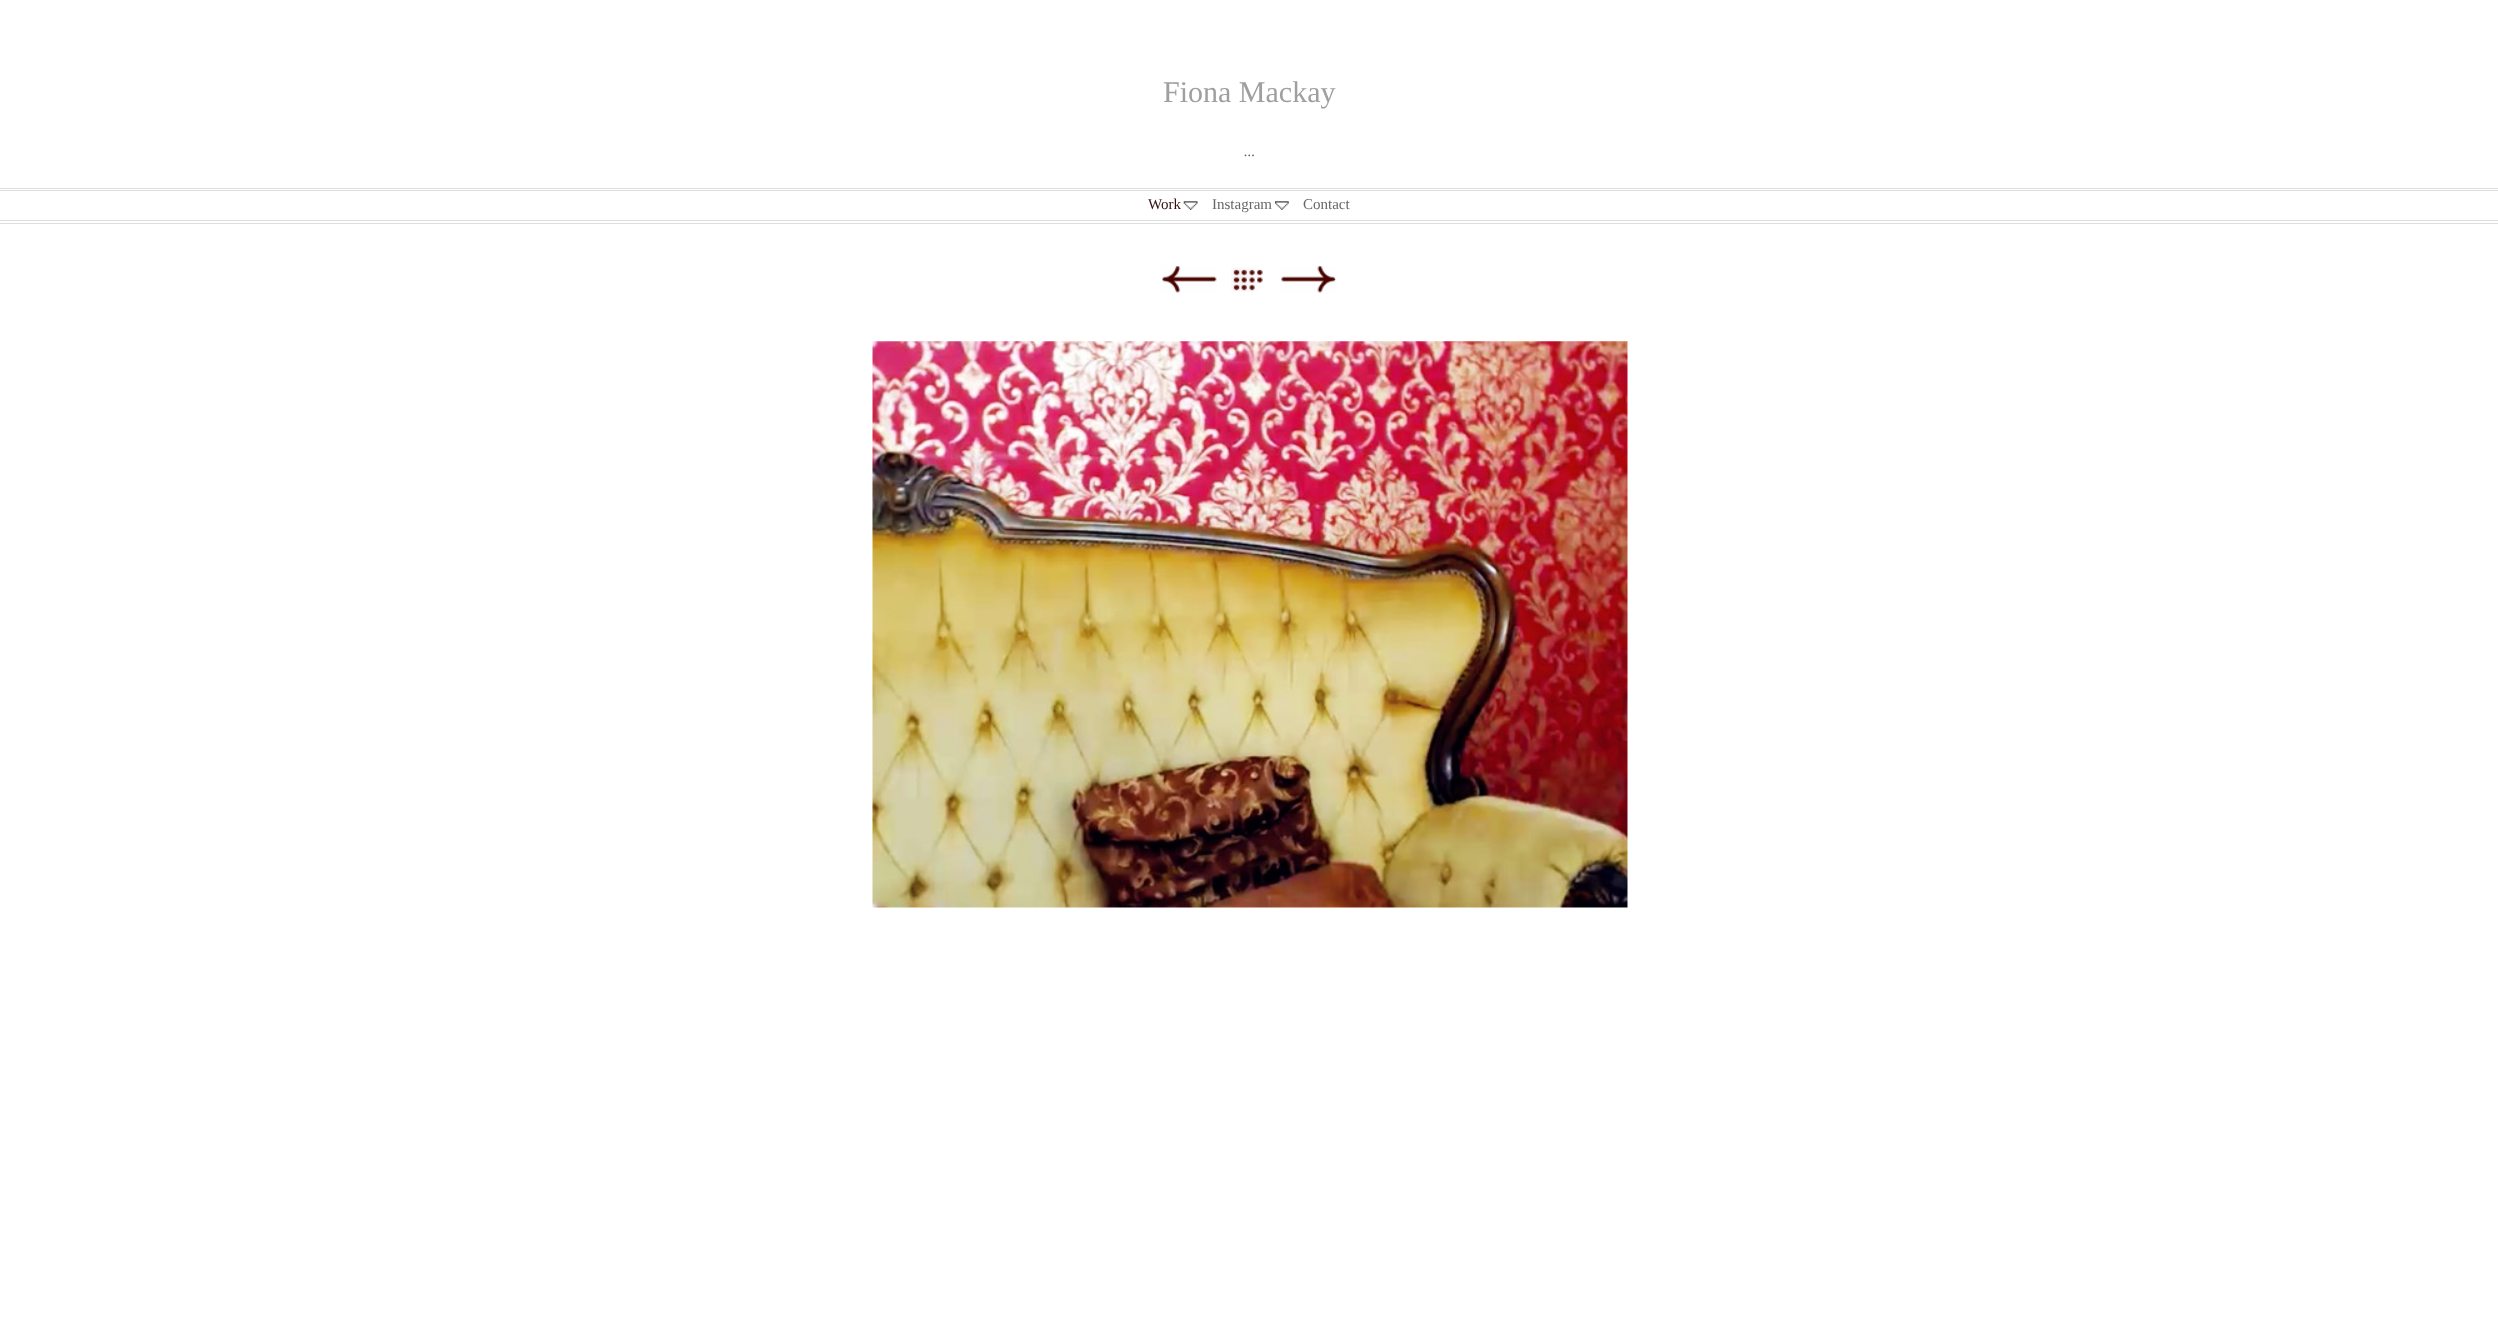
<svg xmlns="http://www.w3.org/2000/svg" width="2498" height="1336">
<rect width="100%" height="100%" fill="#fff"/>
<text x="1163" y="102" style="font-family:Liberation Serif;font-size:30px;fill:#9f9f9f">Fiona Mackay</text>
<text x="1244" y="156" style="font-family:Liberation Serif;font-size:15px;font-style:italic;fill:#755">...</text>
<rect y="188" width="2498" height="1" fill="#ddd"/>
<rect y="190" width="2498" height="1" fill="#ddd"/>
<rect y="220" width="2498" height="1" fill="#ddd"/>
<rect y="223" width="2498" height="1" fill="#ddd"/>
<text x="1148" y="209" style="font-family:Liberation Serif;font-size:15px;fill:#311">Work</text>
<image x="1183" y="201" width="15" height="9" href="media/1.png"/>
<text x="1212" y="209" style="font-family:Liberation Serif;font-size:15px;fill:#666">Instagram</text>
<image x="1275" y="201" width="14" height="9" href="media/2.png"/>
<text x="1303" y="209" style="font-family:Liberation Serif;font-size:15px;fill:#666">Contact</text>
<image x="1162" y="266" width="55" height="27" href="media/3.png"/>
<image x="1258" y="269" width="5" height="22" href="media/4.png"/>
<image x="1231" y="267" width="32" height="25" href="media/5.png"/>
<image x="1281" y="266" width="56" height="27" href="media/6.png"/>
<image x="872" y="341" width="756" height="567" href="media/7.png"/>
</svg>
